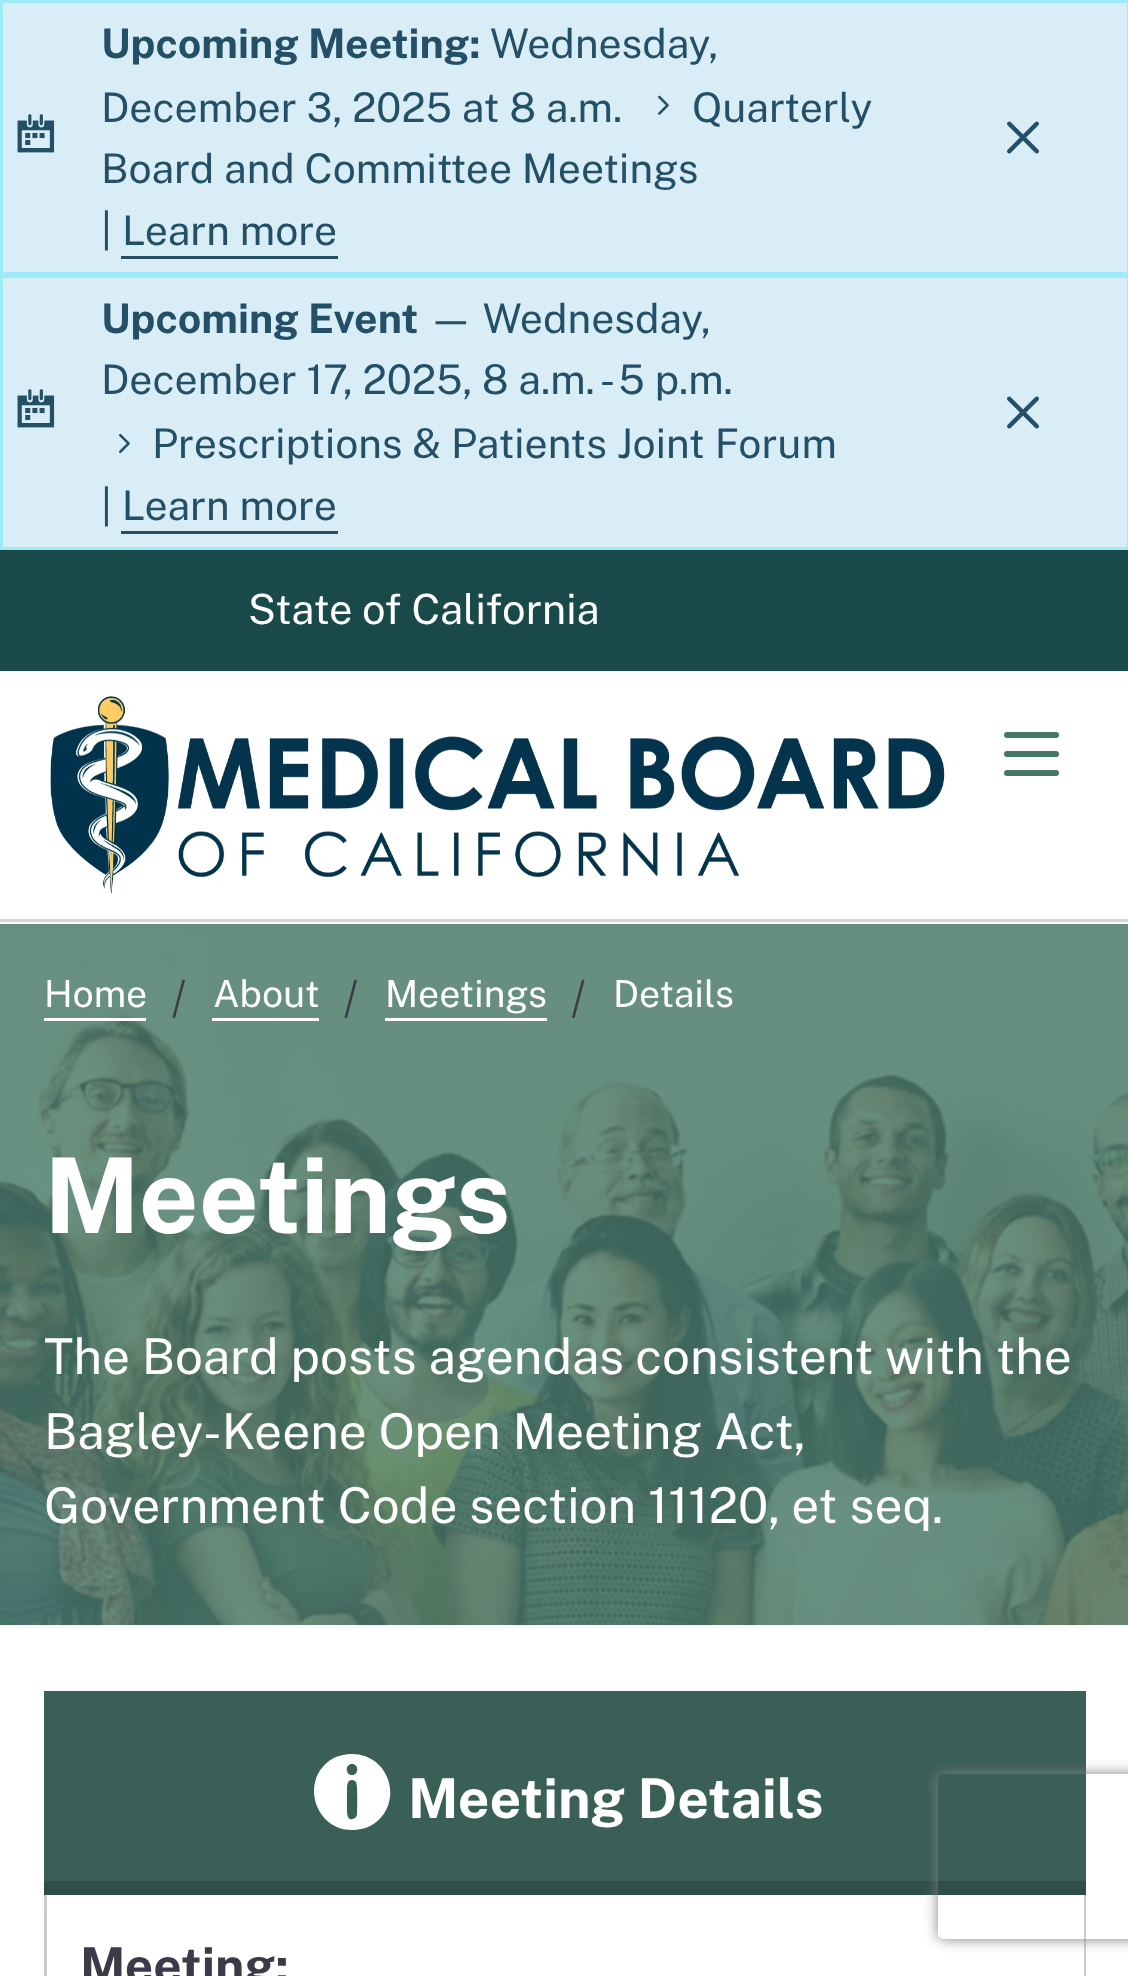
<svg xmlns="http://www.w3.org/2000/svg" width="1128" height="1976">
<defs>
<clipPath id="clip1"><path d="M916 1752h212v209h-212zm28 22h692c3.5 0 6 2.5 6 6v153c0 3.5-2.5 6-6 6h-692c-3.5 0-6-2.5-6-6v-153c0-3.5 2.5-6 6-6z" clip-rule="evenodd"/></clipPath>
</defs>
<rect width="100%" height="100%" fill="#fff"/>
<rect x="1.5" y="1.5" width="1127" height="272" fill="#d9edf7" stroke="#9eeaf9" stroke-width="3"/>
<image x="17" y="114" width="38" height="39" href="media/1.png"/>
<text x="101" y="58" style="font-family:Public Sans;font-size:40.9px;font-weight:bold;fill:#235067">Upcoming Meeting:</text>
<text x="490" y="58" style="font-family:Public Sans;font-size:40.9px;fill:#235067">Wednesday,</text>
<text x="101" y="122" style="font-family:Public Sans;font-size:40.9px;fill:#235067">December 3, 2025 at 8 a.m.</text>
<image x="658" y="95" width="11" height="20" href="media/2.png"/>
<text x="692" y="122" style="font-family:Public Sans;font-size:40.9px;fill:#235067">Quarterly</text>
<text x="101" y="183" style="font-family:Public Sans;font-size:40.9px;fill:#235067">Board and Committee Meetings</text>
<text x="101" y="244" style="font-family:Public Sans;font-size:40.9px;fill:#235067">|</text>
<text x="122" y="245" style="font-family:Public Sans;font-size:40.9px;fill:#235067">Learn more</text>
<rect x="121" y="256" width="217" height="3" fill="#235067"/>
<image x="1007" y="121" width="32" height="33" href="media/3.png"/>
<rect x="1.5" y="276.5" width="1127" height="272" fill="#d9edf7" stroke="#9eeaf9" stroke-width="3"/>
<image x="17" y="389" width="38" height="39" href="media/1.png"/>
<text x="101" y="333" style="font-family:Public Sans;font-size:40.9px;font-weight:bold;fill:#235067">Upcoming Event</text>
<text x="428" y="333" style="font-family:Public Sans;font-size:40.9px;fill:#235067">— Wednesday,</text>
<text x="101" y="394" style="font-family:Public Sans;font-size:40.9px;fill:#235067">December 17, 2025, 8 a.m. - 5 p.m.</text>
<image x="119" y="434" width="11" height="20" href="media/4.png"/>
<text x="152" y="458" style="font-family:Public Sans;font-size:40.9px;fill:#235067">Prescriptions &amp; Patients Joint Forum</text>
<text x="101" y="520" style="font-family:Public Sans;font-size:40.9px;fill:#235067">| Learn more</text>
<rect x="121" y="531" width="217" height="3" fill="#235067"/>
<image x="1007" y="396" width="32" height="33" href="media/3.png"/>
<rect y="550" width="1128" height="121" fill="#194949"/>
<text x="248" y="624" style="font-family:Public Sans;font-size:41.75px;fill:#fff">State of California</text>
<image x="50" y="696" width="895" height="198" href="media/5.png"/>
<rect y="919" width="1128" height="3" fill="#d4d4d7"/>
<rect x="1004" y="732" width="55" height="6" rx="3" fill="#476"/>
<rect x="1004" y="751" width="55" height="6" rx="3" fill="#476"/>
<rect x="1004" y="770" width="55" height="6" rx="3" fill="#476"/>
<image x="0" y="924" width="1128" height="702" href="media/6.png"/>
<text x="44" y="1007" style="font-family:Public Sans;font-size:37.5px;fill:#fff">Home</text>
<rect x="44" y="1018" width="102" height="3" fill="#fff"/>
<path d="M182.5 979.5l2.5 .5l-10 38l-2.5-.5z" fill="#3b3a48"/>
<text x="213" y="1007" style="font-family:Public Sans;font-size:37.5px;fill:#fff">About</text>
<rect x="212" y="1018" width="107" height="3" fill="#fff"/>
<path d="M354.5 979.5l2.5 .5l-10 38l-2.5-.5z" fill="#3b3a48"/>
<text x="385" y="1007" style="font-family:Public Sans;font-size:37.5px;fill:#fff">Meetings</text>
<rect x="385" y="1018" width="162" height="3" fill="#fff"/>
<path d="M582 979.5l2.5 .5l-10 38l-2.5-.5z" fill="#3b3a48"/>
<text x="613" y="1007" style="font-family:Public Sans;font-size:37.5px;fill:#fff">Details</text>
<text x="44" y="1233" style="font-family:Public Sans;font-size:104.5px;font-weight:bold;fill:#fff">Meetings</text>
<text x="44" y="1374" style="font-family:Public Sans;font-size:49.5px;fill:#fff">The Board posts agendas consistent with the</text>
<text x="44" y="1449" style="font-family:Public Sans;font-size:49.5px;fill:#fff">Bagley-Keene Open Meeting Act,</text>
<text x="44" y="1523" style="font-family:Public Sans;font-size:49.5px;fill:#fff">Government Code section 11120, et seq.</text>
<rect x="44" y="1691" width="1042" height="190" fill="#3a5f57"/>
<rect x="44" y="1881" width="1042" height="14" fill="#304e48"/>
<path d="M352 1754c-8 0-16 2-23 7c-29 22-13 69 23 69c8 0 16-2 23-7c29-22 14-69-23-69zm5 60c0 2-1 4-4 5c-6 2-6-6-6-10v-19c0-4 0-10 5-10c2 0 3 1 4 2c2 3 1 27 1 32zm-5-39c-7 0-7-11 0-11c7 0 7 11 0 11z" fill="#fff"/>
<text x="408" y="1818" style="font-family:Public Sans;font-size:55px;font-weight:bold;fill:#fff">Meeting Details</text>
<rect x="1084" y="1895" width="2" height="81" fill="#ccc"/>
<rect x="44" y="1895" width="3" height="81" fill="#ccc"/>
<text x="80" y="1983" style="font-family:Public Sans;font-size:49.5px;font-weight:bold;fill:#3b3a48">Meeting:</text>
<g clip-path="url(#clip1)">
<rect x="938" y="1774" width="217" height="165" rx="6" fill="#808080" filter="blur(7px)"/>
</g>
</svg>
